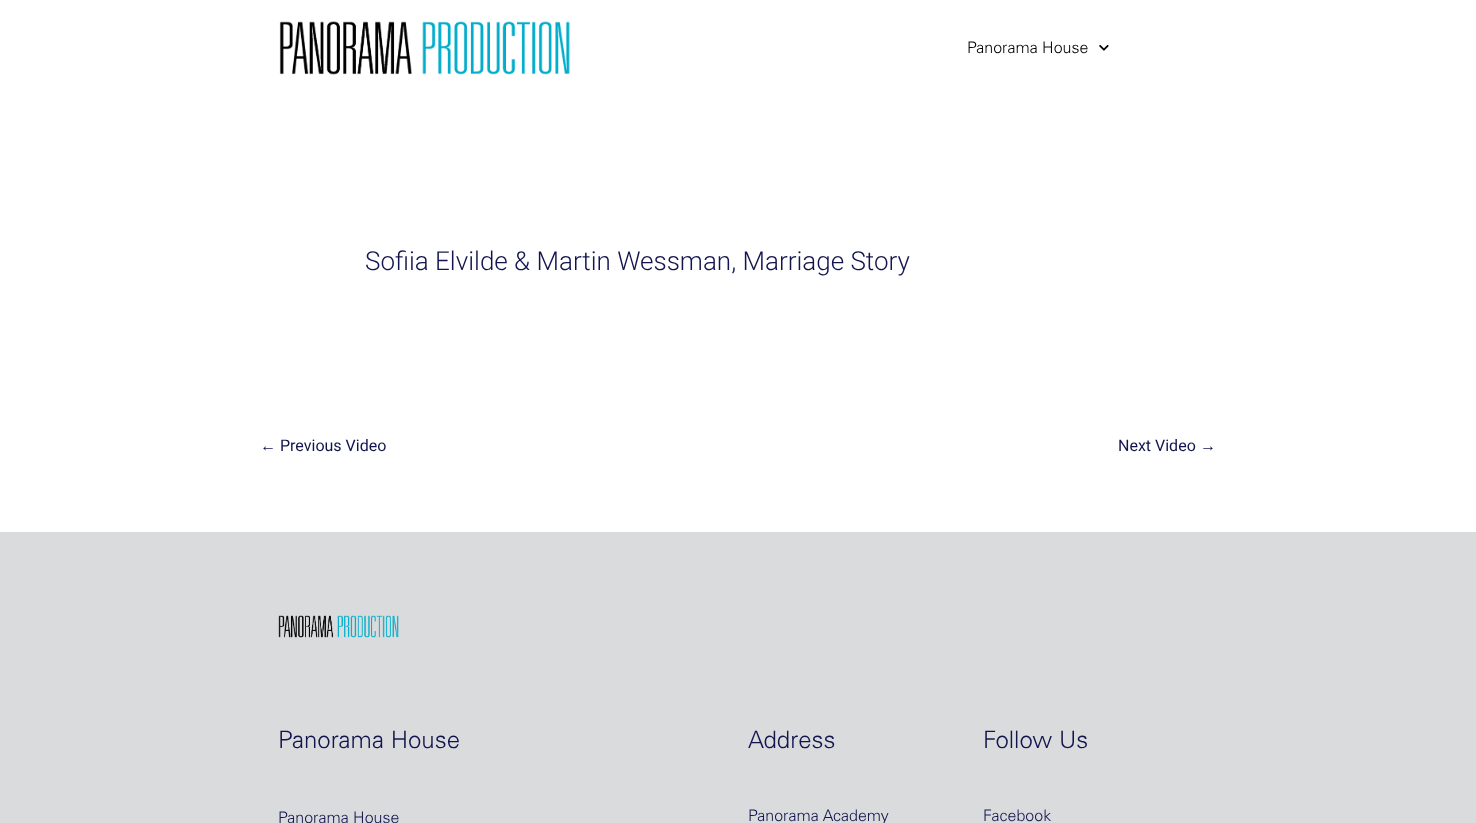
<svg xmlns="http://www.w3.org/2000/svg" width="1476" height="823">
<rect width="100%" height="100%" fill="#fff"/>
<image x="279" y="21" width="291" height="54" href="media/1.png"/>
<text x="967" y="53" style="font-family:'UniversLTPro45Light';font-size:16px;fill:#000">Panorama House</text>
<image x="1099" y="45" width="10" height="6" href="media/2.png"/>
<text x="365" y="270" style="font-family:Roboto;font-size:26px;font-weight:300;fill:#12154d">Sofiia Elvilde &amp; Martin Wessman, Marriage Story</text>
<text x="260" y="451" style="font-family:Liberation Sans;font-size:16px;fill:#12154d">←</text>
<text x="280" y="451" style="font-family:Roboto;font-size:16px;fill:#12154d">Previous Video</text>
<text x="1118" y="451" style="font-family:Roboto;font-size:16px;fill:#12154d">Next Video</text>
<text x="1200" y="451" style="font-family:Liberation Sans;font-size:16px;fill:#12154d">→</text>
<rect y="532" width="1476" height="291" fill="#d9dbdd"/>
<image x="278" y="615" width="121" height="23" href="media/3.png"/>
<text x="278" y="748" style="font-family:'UniversLTPro45Light';font-size:24px;fill:#12154d">Panorama House</text>
<text x="278" y="823" style="font-family:'UniversLTPro45Light';font-size:16px;fill:#12154d">Panorama House</text>
<text x="748" y="748" style="font-family:'UniversLTPro45Light';font-size:24px;fill:#12154d">Address</text>
<text x="748" y="821" style="font-family:'UniversLTPro45Light';font-size:16px;fill:#12154d">Panorama Academy</text>
<text x="983" y="748" style="font-family:'UniversLTPro45Light';font-size:24px;fill:#12154d">Follow Us</text>
<text x="983" y="821" style="font-family:'UniversLTPro45Light';font-size:16px;fill:#12154d">Facebook</text>
</svg>
